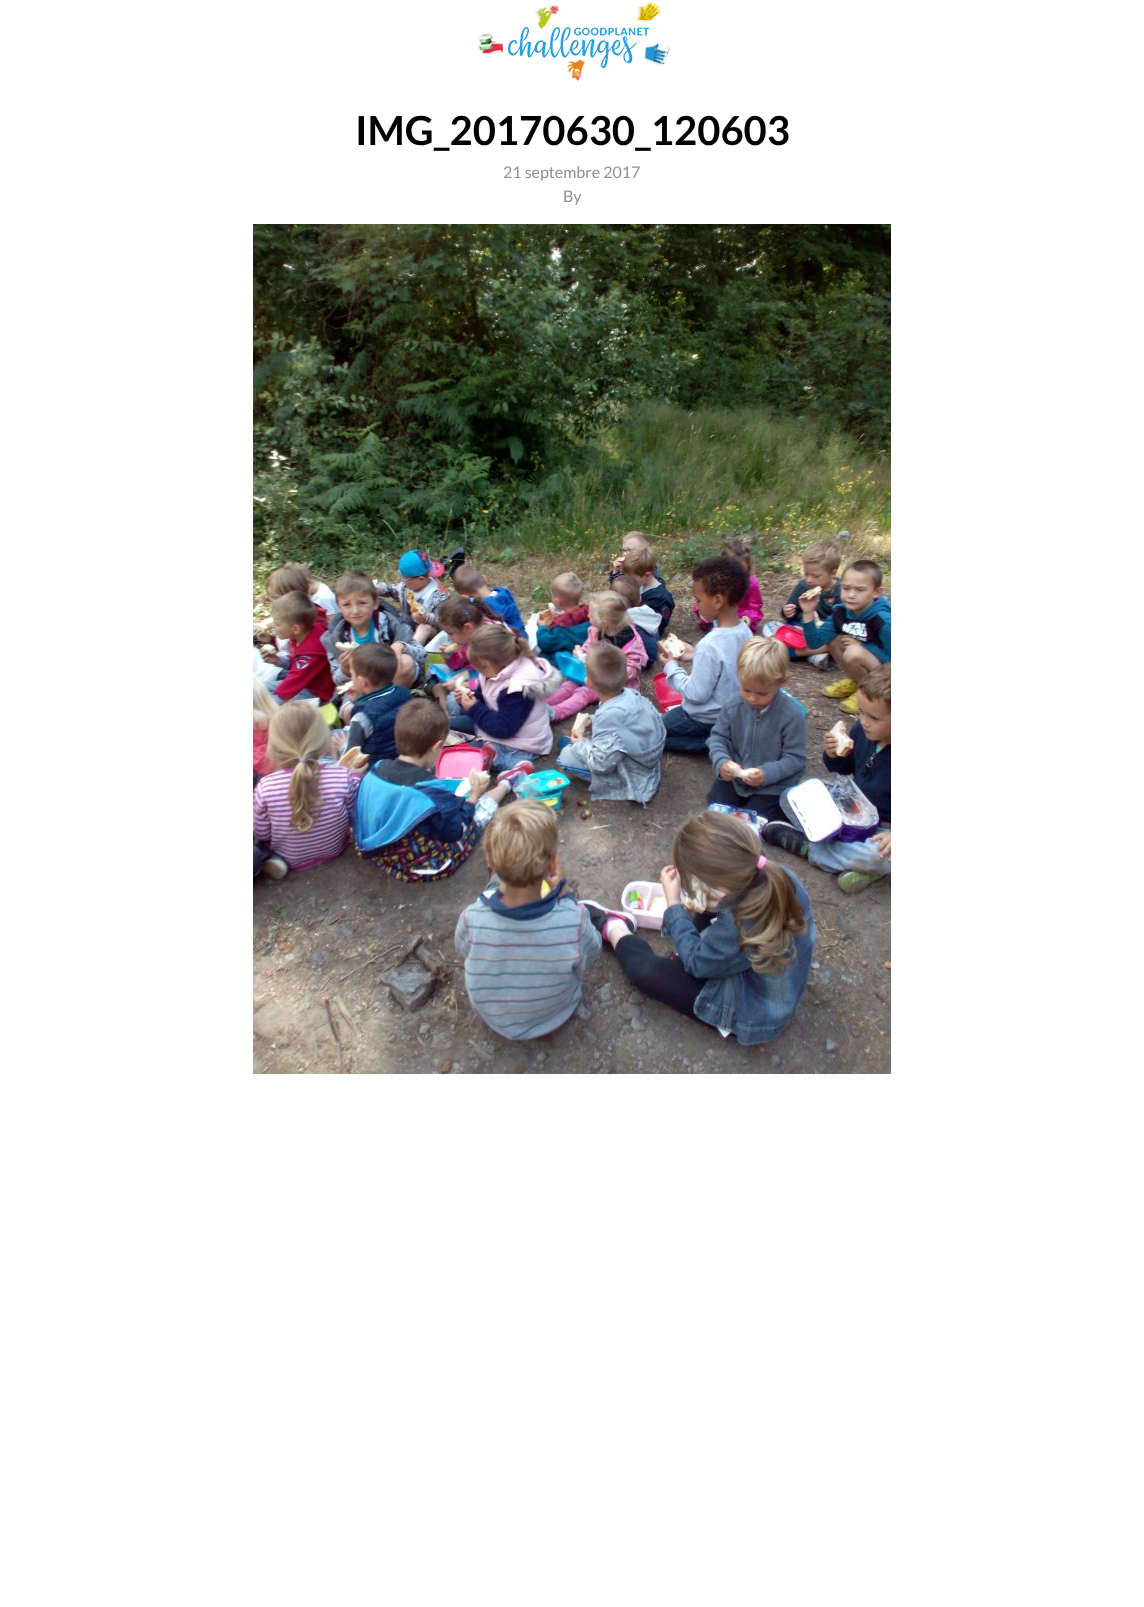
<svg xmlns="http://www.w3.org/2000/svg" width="1144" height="1607">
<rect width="100%" height="100%" fill="#fff"/>
<image x="478" y="2" width="192" height="80" href="media/1.png"/>
<text x="355" y="145" style="font-family:Lato;font-size:40px;font-weight:bold;fill:#000">IMG_20170630_120603</text>
<text x="503" y="178" style="font-family:Lato;font-size:16px;fill:#909090">21 septembre 2017</text>
<text x="563" y="202" style="font-family:Lato;font-size:16px;fill:#909090">By</text>
<image x="253" y="224" width="638" height="850" href="media/2.png"/>
</svg>
